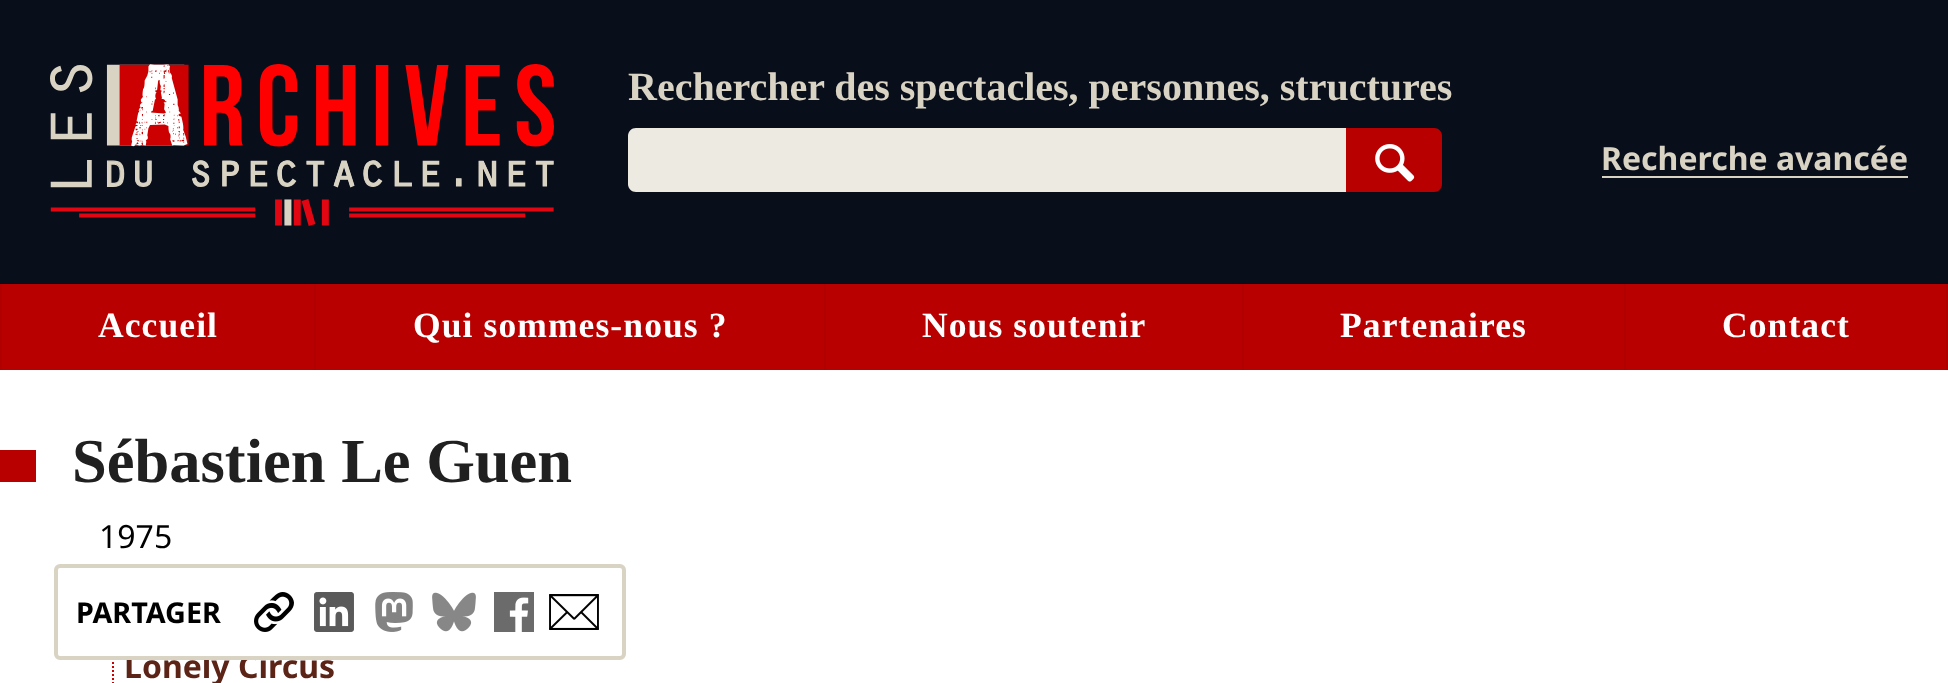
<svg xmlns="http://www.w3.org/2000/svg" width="1948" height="683">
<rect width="100%" height="100%" fill="#fff"/>
<rect width="1948" height="284" fill="#090e1b"/>
<image x="50" y="64" width="504" height="162" href="media/1.png"/>
<text x="628" y="100" style="font-family:Liberation Serif;font-size:40px;font-weight:bold;fill:#d9d3c3">Rechercher des spectacles, personnes, structures</text>
<path d="M636 128h710v64h-710c-4.5 0-8-3.5-8-8v-48c0-4.5 3.5-8 8-8z" fill="#edeae2"/>
<path d="M1346 128h88c4.5 0 8 3.5 8 8v48c0 4.5-3.5 8-8 8h-88z" fill="#b90000"/>
<image x="1375" y="144" width="40" height="38" href="media/2.png"/>
<text x="1601" y="170" style="font-family:Noto Sans;font-size:32px;font-weight:bold;fill:#d9d3c3">Recherche avancée</text>
<rect x="1602" y="176" width="306" height="2" fill="#d9d3c3"/>
<rect x="2" y="284" width="1944" height="86" fill="#b90000"/>
<rect x="314" y="284" width="2" height="86" fill="#b00000"/>
<rect y="284" width="2" height="86" fill="#b00000"/>
<text x="98" y="337" style="font-family:Liberation Serif;font-size:35.5px;font-weight:bold;letter-spacing:1.1px;fill:#fff">Accueil</text>
<rect x="824" y="284" width="2" height="86" fill="#b00000"/>
<text x="413" y="337" style="font-family:Liberation Serif;font-size:35.5px;font-weight:bold;letter-spacing:1.1px;fill:#fff">Qui sommes-nous ?</text>
<rect x="1242" y="284" width="2" height="86" fill="#b00000"/>
<text x="922" y="337" style="font-family:Liberation Serif;font-size:35.5px;font-weight:bold;letter-spacing:1.1px;fill:#fff">Nous soutenir</text>
<rect x="1624" y="284" width="2" height="86" fill="#b00000"/>
<text x="1340" y="337" style="font-family:Liberation Serif;font-size:35.5px;font-weight:bold;letter-spacing:1.1px;fill:#fff">Partenaires</text>
<rect x="1946" y="284" width="2" height="86" fill="#b00000"/>
<text x="1722" y="337" style="font-family:Liberation Serif;font-size:35.5px;font-weight:bold;letter-spacing:1.1px;fill:#fff">Contact</text>
<rect y="450" width="36" height="32" fill="#b90000"/>
<text x="72" y="482" style="font-family:Liberation Serif;font-size:62.5px;font-weight:bold;fill:#202020">Sébastien Le Guen</text>
<text x="99" y="548" style="font-family:Noto Sans;font-size:32px;fill:#000">1975</text>
<path d="M113 638v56" fill="none" stroke="#c00" stroke-width="2" stroke-dasharray="2 2"/>
<text x="124" y="678" style="font-family:Noto Sans;font-size:32px;font-weight:bold;fill:#5b2417">Lonely Circus</text>
<rect x="56" y="566" width="568" height="92" rx="4" fill="#fff" stroke="#d9d3c3" stroke-width="4"/>
<text x="76" y="623" style="font-family:Noto Sans;font-size:28.75px;font-weight:bold;fill:#000">PARTAGER</text>
<image x="254" y="592" width="40" height="40" href="media/3.png"/>
<image x="314" y="592" width="40" height="40" href="media/4.png"/>
<image x="375" y="592" width="38" height="40" href="media/5.png"/>
<image x="432" y="592" width="44" height="40" href="media/6.png"/>
<image x="494" y="592" width="40" height="40" href="media/7.png"/>
<image x="549" y="594" width="50" height="36" href="media/8.png"/>
</svg>
